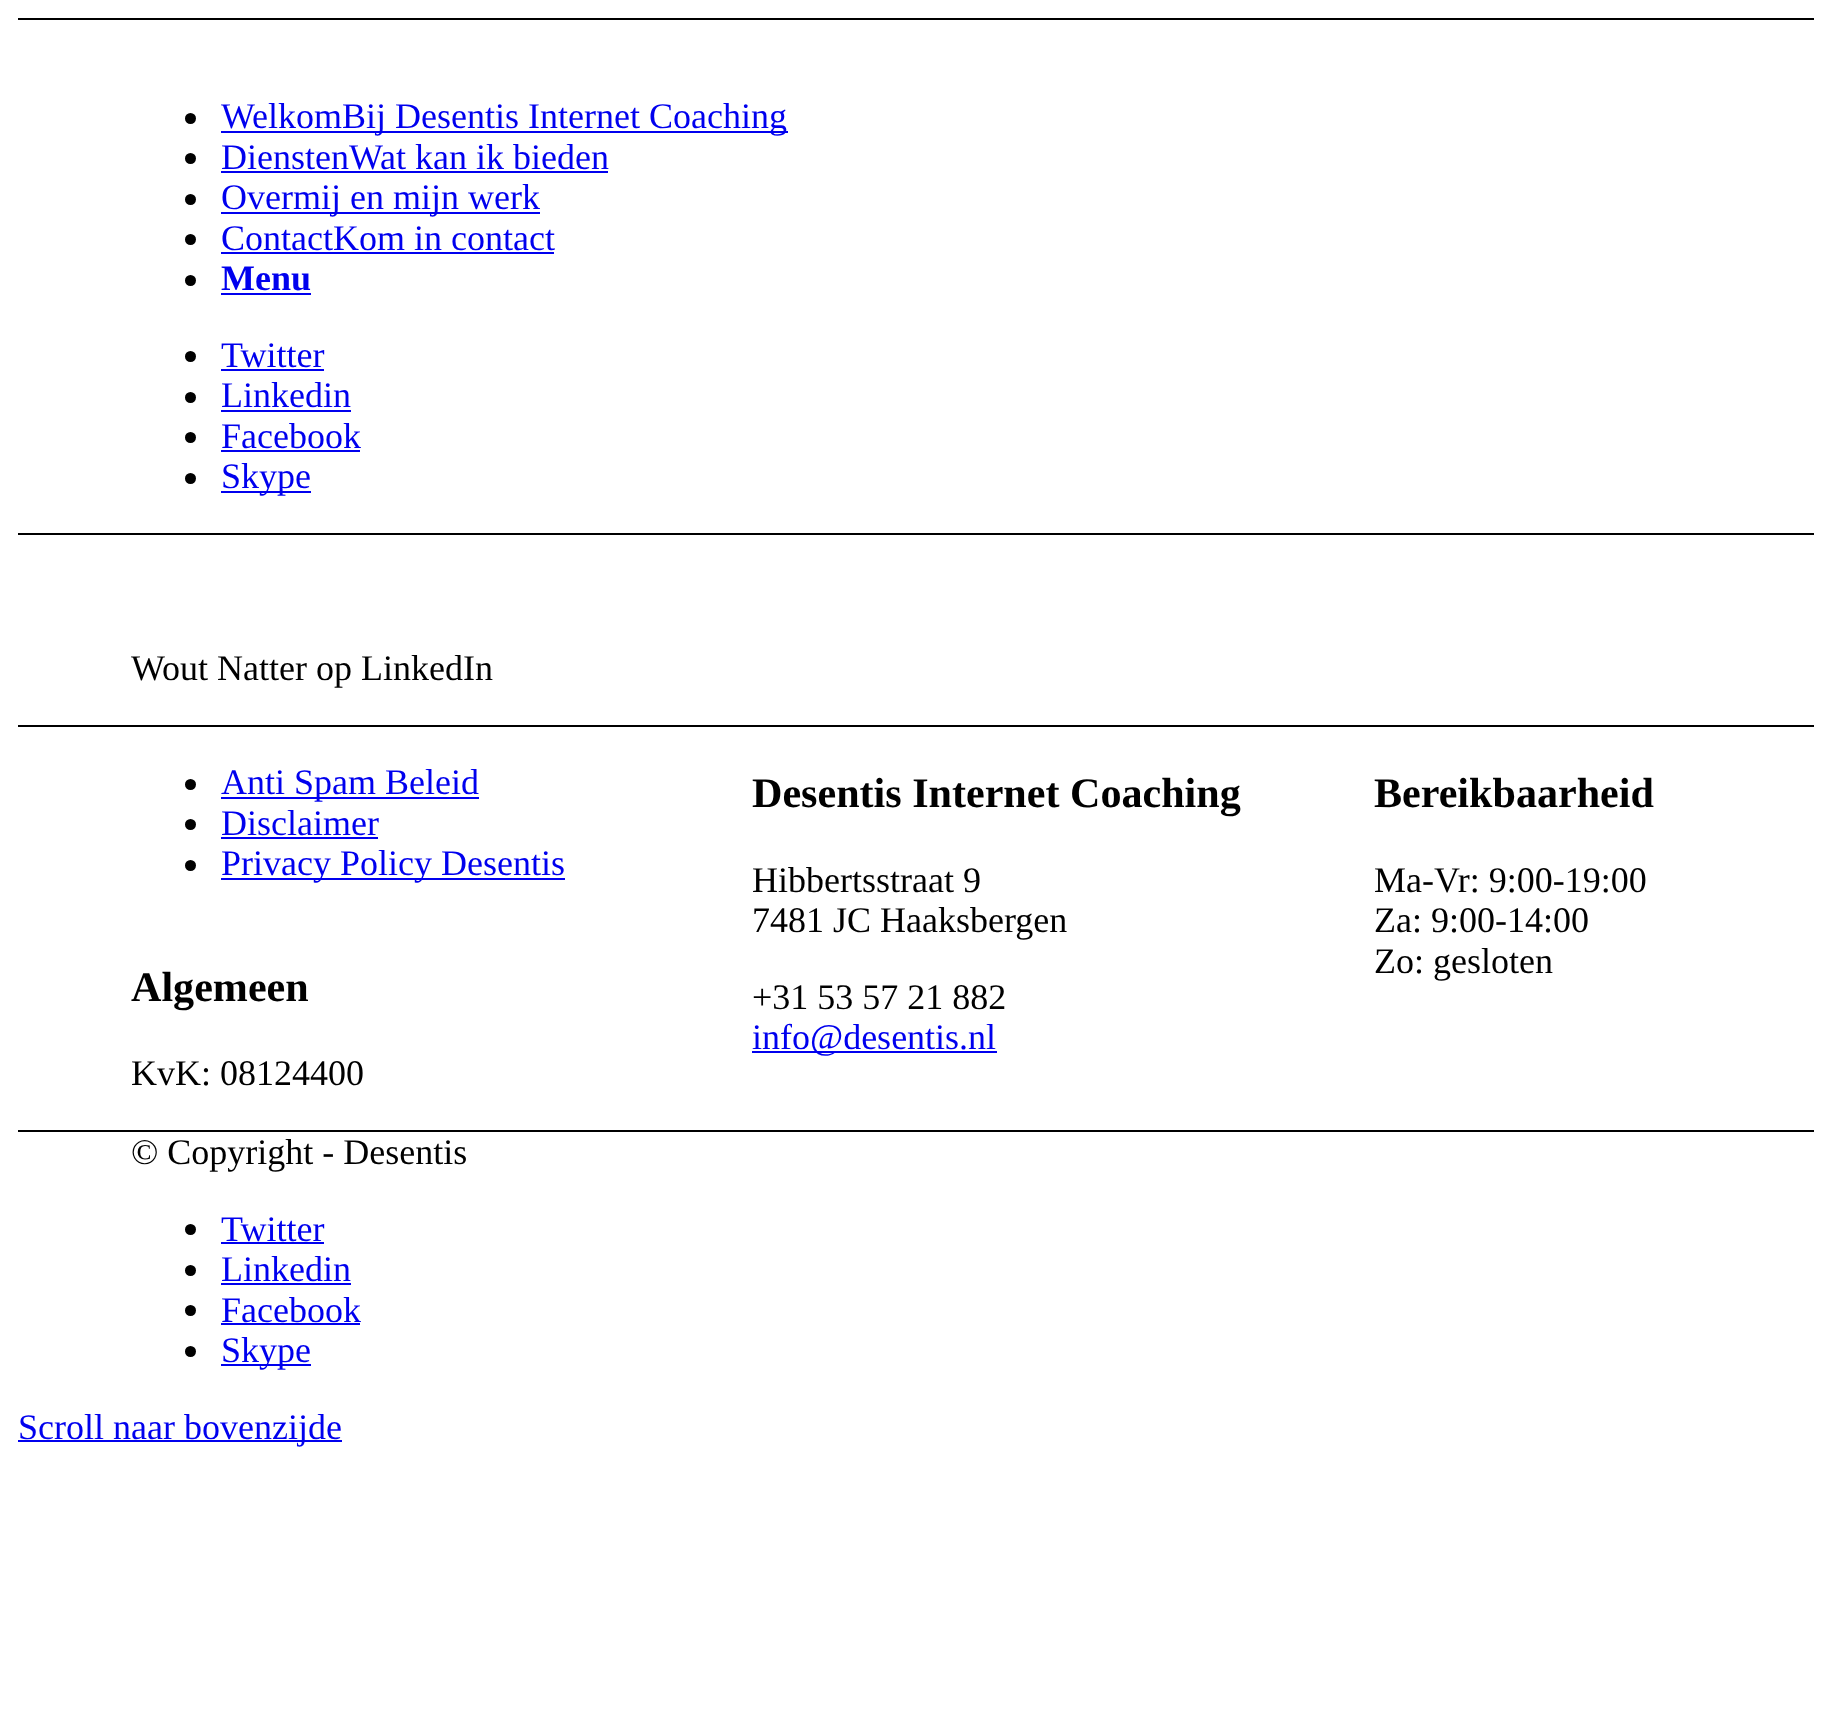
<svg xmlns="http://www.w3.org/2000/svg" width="1831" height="1732">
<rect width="100%" height="100%" fill="#fff"/>
<rect x="18" y="18" width="1796" height="2" fill="#000"/>
<circle cx="190.5" cy="118.5" r="5.5" fill="#000"/>
<rect x="221" y="131" width="567" height="2" fill="#00e"/>
<text x="221" y="128" style="font-family:Liberation Serif;font-size:36px;fill:#00e">WelkomBij Desentis Internet Coaching</text>
<circle cx="190.5" cy="158.5" r="5.5" fill="#000"/>
<text x="221" y="169" style="font-family:Liberation Serif;font-size:36px;fill:#00e">DienstenWat kan ik bieden</text>
<rect x="221" y="171" width="387" height="2" fill="#00e"/>
<circle cx="190.5" cy="199.5" r="5.5" fill="#000"/>
<rect x="221" y="212" width="319" height="2" fill="#00e"/>
<text x="221" y="209" style="font-family:Liberation Serif;font-size:36px;fill:#00e">Overmij en mijn werk</text>
<circle cx="190.5" cy="239.5" r="5.5" fill="#000"/>
<text x="221" y="250" style="font-family:Liberation Serif;font-size:36px;fill:#00e">ContactKom in contact</text>
<rect x="221" y="252" width="333" height="2" fill="#00e"/>
<circle cx="190.5" cy="280.5" r="5.5" fill="#000"/>
<text x="221" y="290" style="font-family:Liberation Serif;font-size:36px;font-weight:bold;fill:#00e">Menu</text>
<rect x="221" y="293" width="90" height="2" fill="#00e"/>
<circle cx="190.5" cy="356.5" r="5.5" fill="#000"/>
<text x="221" y="367" style="font-family:Liberation Serif;font-size:36px;fill:#00e">Twitter</text>
<rect x="221" y="369" width="103" height="2" fill="#00e"/>
<circle cx="190.5" cy="397.5" r="5.5" fill="#000"/>
<text x="221" y="407" style="font-family:Liberation Serif;font-size:36px;fill:#00e">Linkedin</text>
<rect x="221" y="410" width="130" height="2" fill="#00e"/>
<circle cx="190.5" cy="437.5" r="5.5" fill="#000"/>
<text x="221" y="448" style="font-family:Liberation Serif;font-size:36px;fill:#00e">Facebook</text>
<rect x="221" y="450" width="139" height="2" fill="#00e"/>
<circle cx="190.5" cy="478.5" r="5.5" fill="#000"/>
<rect x="221" y="491" width="90" height="2" fill="#00e"/>
<text x="221" y="488" style="font-family:Liberation Serif;font-size:36px;fill:#00e">Skype</text>
<rect x="18" y="533" width="1796" height="2" fill="#000"/>
<text x="131" y="680" style="font-family:Liberation Serif;font-size:36px;fill:#000">Wout Natter op LinkedIn</text>
<rect x="18" y="725" width="1796" height="2" fill="#000"/>
<circle cx="190.5" cy="784.5" r="5.5" fill="#000"/>
<rect x="221" y="797" width="258" height="2" fill="#00e"/>
<text x="221" y="794" style="font-family:Liberation Serif;font-size:36px;fill:#00e">Anti Spam Beleid</text>
<circle cx="190.5" cy="824.5" r="5.5" fill="#000"/>
<text x="221" y="835" style="font-family:Liberation Serif;font-size:36px;fill:#00e">Disclaimer</text>
<rect x="221" y="837" width="157" height="2" fill="#00e"/>
<circle cx="190.5" cy="865.5" r="5.5" fill="#000"/>
<rect x="221" y="878" width="344" height="2" fill="#00e"/>
<text x="221" y="875" style="font-family:Liberation Serif;font-size:36px;fill:#00e">Privacy Policy Desentis</text>
<text x="131" y="1001" style="font-family:Liberation Serif;font-size:42.1px;font-weight:bold;fill:#000">Algemeen</text>
<text x="131" y="1085" style="font-family:Liberation Serif;font-size:36px;fill:#000">KvK: 08124400</text>
<text x="752" y="807" style="font-family:Liberation Serif;font-size:42.1px;font-weight:bold;fill:#000">Desentis Internet Coaching</text>
<text x="752" y="892" style="font-family:Liberation Serif;font-size:36px;fill:#000">Hibbertsstraat 9</text>
<text x="752" y="932" style="font-family:Liberation Serif;font-size:36px;fill:#000">7481 JC Haaksbergen</text>
<text x="752" y="1009" style="font-family:Liberation Serif;font-size:36px;fill:#000">+31 53 57 21 882</text>
<rect x="752" y="1051" width="245" height="2" fill="#00e"/>
<text x="752" y="1049" style="font-family:Liberation Serif;font-size:36px;fill:#00e">info@desentis.nl</text>
<text x="1374" y="807" style="font-family:Liberation Serif;font-size:42.1px;font-weight:bold;fill:#000">Bereikbaarheid</text>
<text x="1374" y="892" style="font-family:Liberation Serif;font-size:36px;fill:#000">Ma-Vr: 9:00-19:00</text>
<text x="1374" y="932" style="font-family:Liberation Serif;font-size:36px;fill:#000">Za: 9:00-14:00</text>
<text x="1374" y="973" style="font-family:Liberation Serif;font-size:36px;fill:#000">Zo: gesloten</text>
<rect x="18" y="1130" width="1796" height="2" fill="#000"/>
<text x="131" y="1164" style="font-family:Liberation Serif;font-size:36px;fill:#000">© Copyright - Desentis</text>
<circle cx="190.5" cy="1229.5" r="5.5" fill="#000"/>
<text x="221" y="1241" style="font-family:Liberation Serif;font-size:36px;fill:#00e">Twitter</text>
<rect x="221" y="1242" width="103" height="2" fill="#00e"/>
<circle cx="190.5" cy="1270.5" r="5.5" fill="#000"/>
<text x="221" y="1281" style="font-family:Liberation Serif;font-size:36px;fill:#00e">Linkedin</text>
<rect x="221" y="1283" width="130" height="2" fill="#00e"/>
<circle cx="190.5" cy="1310.5" r="5.5" fill="#000"/>
<text x="221" y="1322" style="font-family:Liberation Serif;font-size:36px;fill:#00e">Facebook</text>
<rect x="221" y="1323" width="139" height="2" fill="#00e"/>
<circle cx="190.5" cy="1351.5" r="5.5" fill="#000"/>
<rect x="221" y="1364" width="90" height="2" fill="#00e"/>
<text x="221" y="1362" style="font-family:Liberation Serif;font-size:36px;fill:#00e">Skype</text>
<rect x="18" y="1440" width="324" height="2" fill="#00e"/>
<text x="18" y="1439" style="font-family:Liberation Serif;font-size:36px;fill:#00e">Scroll naar bovenzijde</text>
</svg>
